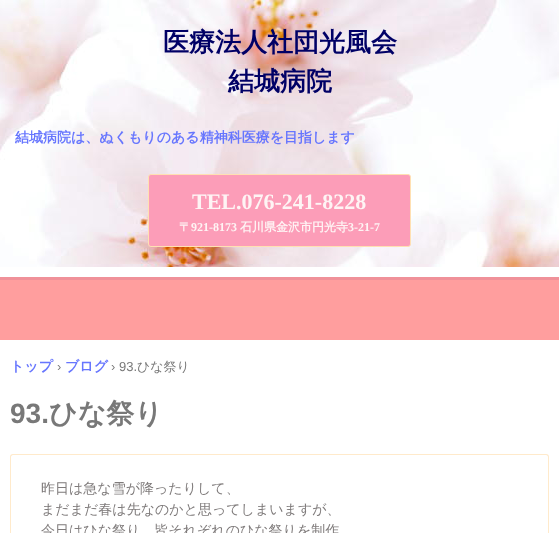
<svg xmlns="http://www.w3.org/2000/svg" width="559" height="533">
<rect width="100%" height="100%" fill="#fff"/>
<image x="0" y="0" width="559" height="267" href="media/1.png"/>
<text x="163" y="51" style="font-family:WenQuanYi Zen Hei;font-size:26px;font-weight:bold;fill:#006">医療法人社団光風会</text>
<text x="228" y="90" style="font-family:WenQuanYi Zen Hei;font-size:26px;font-weight:bold;fill:#006">結城病院</text>
<text x="15" y="142" style="font-family:WenQuanYi Zen Hei;font-size:14px;font-weight:bold;fill:#6776fe">結城病院は、ぬくもりのある精神科医療を目指します</text>
<rect x="148.5" y="174.5" width="262" height="72" rx="2.5" fill="#fc9db8" stroke="#ffe0b2"/>
<text x="192" y="209" style="font-family:Liberation Serif;font-size:22px;font-weight:bold;fill:#fef4f4">TEL.076-241-8228</text>
<text x="179" y="231" style="font-family:WenQuanYi Zen Hei;font-size:12px;font-weight:bold;fill:#fef4f4">〒</text>
<text x="191" y="231" style="font-family:Liberation Serif;font-size:12px;font-weight:bold;fill:#fef4f4">921-8173</text>
<text x="240" y="231" style="font-family:WenQuanYi Zen Hei;font-size:12px;font-weight:bold;fill:#fef4f4">石川県金沢市円光寺</text>
<text x="348" y="231" style="font-family:Liberation Serif;font-size:12px;font-weight:bold;fill:#fef4f4">3-21-7</text>
<rect y="277" width="559" height="3" fill="#f09199"/>
<rect y="280" width="559" height="60" fill="#ff9e9e"/>
<text x="10" y="371" style="font-family:WenQuanYi Zen Hei;font-size:14px;font-weight:bold;fill:#6776fe">トップ</text>
<text x="57" y="371" style="font-family:Liberation Sans;font-size:13px;fill:#787878">›</text>
<text x="65" y="371" style="font-family:WenQuanYi Zen Hei;font-size:14px;font-weight:bold;fill:#6776fe">ブログ</text>
<text x="111" y="371" style="font-family:Liberation Sans;font-size:13px;fill:#787878">› 93.</text>
<text x="137" y="371" style="font-family:WenQuanYi Zen Hei;font-size:13px;font-weight:500;fill:#787878">ひな祭り</text>
<text x="10" y="423" style="font-family:Liberation Sans;font-size:28px;font-weight:bold;fill:#787878">93.</text>
<text x="49" y="423" style="font-family:WenQuanYi Zen Hei;font-size:28px;font-weight:bold;fill:#787878">ひな祭り</text>
<path d="M13 454h533c2 0 3 1 3 3v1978h-539v-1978c0-2 1-3 3-3zm0 1h533c1 0 2 1 2 2v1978h-537v-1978c0-1 1-2 2-2z" fill="#ffeacb" fill-rule="evenodd"/>
<text x="41" y="493" style="font-family:WenQuanYi Zen Hei;font-size:14px;font-weight:500;fill:#7f7b7b">昨日は急な雪が降ったりして、</text>
<text x="41" y="514" style="font-family:WenQuanYi Zen Hei;font-size:14px;font-weight:500;fill:#7f7b7b">まだまだ春は先なのかと思ってしまいますが、</text>
<text x="41" y="535" style="font-family:WenQuanYi Zen Hei;font-size:14px;font-weight:500;fill:#7f7b7b">今日はひな祭り。皆それぞれのひな祭りを制作</text>
</svg>
